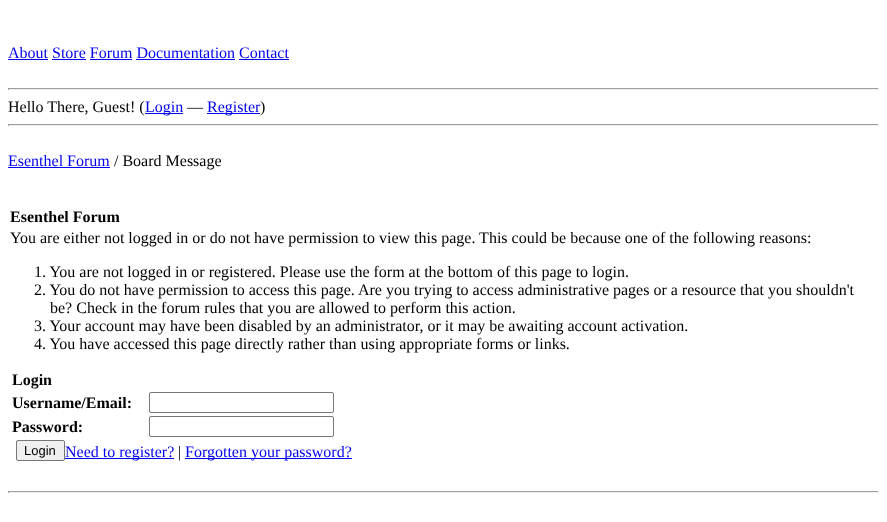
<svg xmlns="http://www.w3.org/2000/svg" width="887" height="522">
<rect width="100%" height="100%" fill="#fff"/>
<text x="8" y="58" style="font-family:Liberation Serif;font-size:16px;fill:#00e">About Store Forum Documentation Contact</text>
<rect x="8" y="59" width="40" height="1" fill="#00e"/>
<rect x="52" y="59" width="34" height="1" fill="#00e"/>
<rect x="90" y="59" width="42" height="1" fill="#00e"/>
<rect x="136" y="59" width="99" height="1" fill="#00e"/>
<rect x="239" y="59" width="50" height="1" fill="#00e"/>
<rect x="8" y="88" width="871" height="1" fill="#9f9f9f"/>
<rect x="878" y="88" width="1" height="2" fill="#eee"/>
<rect x="8" y="89" width="871" height="1" fill="#eee"/>
<rect x="8" y="88" width="1" height="2" fill="#9f9f9f"/>
<text x="8" y="112" style="font-family:Liberation Serif;font-size:16px;fill:#000">Hello There, Guest! (</text>
<rect x="145" y="113" width="38" height="1" fill="#00e"/>
<text x="145" y="112" style="font-family:Liberation Serif;font-size:16px;fill:#00e">Login</text>
<text x="187" y="112" style="font-family:Liberation Serif;font-size:16px;fill:#000">—</text>
<rect x="207" y="113" width="53" height="1" fill="#00e"/>
<text x="207" y="112" style="font-family:Liberation Serif;font-size:16px;fill:#00e">Register</text>
<text x="260" y="112" style="font-family:Liberation Serif;font-size:16px;fill:#000">)</text>
<rect x="8" y="124" width="871" height="1" fill="#9f9f9f"/>
<rect x="878" y="124" width="1" height="2" fill="#eee"/>
<rect x="8" y="125" width="871" height="1" fill="#eee"/>
<rect x="8" y="124" width="1" height="2" fill="#9f9f9f"/>
<text x="8" y="166" style="font-family:Liberation Serif;font-size:16px;fill:#00e">Esenthel Forum</text>
<rect x="8" y="167" width="102" height="1" fill="#00e"/>
<text x="114" y="166" style="font-family:Liberation Serif;font-size:16px;fill:#000">/ Board Message</text>
<text x="10" y="222" style="font-family:Liberation Serif;font-size:16px;font-weight:bold;fill:#000">Esenthel Forum</text>
<text x="10" y="243" style="font-family:Liberation Serif;font-size:16px;fill:#000">You are either not logged in or do not have permission to view this page. This could be because one of the following reasons:</text>
<text x="34" y="277" style="font-family:Liberation Serif;font-size:16px;fill:#000">1. You are not logged in or registered. Please use the form at the bottom of this page to login.</text>
<text x="34" y="295" style="font-family:Liberation Serif;font-size:16px;fill:#000">2. You do not have permission to access this page. Are you trying to access administrative pages or a resource that you shouldn't</text>
<text x="50" y="313" style="font-family:Liberation Serif;font-size:16px;fill:#000">be? Check in the forum rules that you are allowed to perform this action.</text>
<text x="34" y="331" style="font-family:Liberation Serif;font-size:16px;fill:#000">3. Your account may have been disabled by an administrator, or it may be awaiting account activation.</text>
<text x="34" y="349" style="font-family:Liberation Serif;font-size:16px;fill:#000">4. You have accessed this page directly rather than using appropriate forms or links.</text>
<text x="12" y="385" style="font-family:Liberation Serif;font-size:16px;font-weight:bold;fill:#000">Login</text>
<text x="12" y="408" style="font-family:Liberation Serif;font-size:16px;font-weight:bold;fill:#000">Username/Email:</text>
<rect x="149.5" y="392.5" width="184" height="20" rx="1.5" fill="none" stroke="#767676"/>
<text x="12" y="432" style="font-family:Liberation Serif;font-size:16px;font-weight:bold;fill:#000">Password:</text>
<rect x="149.5" y="416.5" width="184" height="20" rx="1.5" fill="none" stroke="#767676"/>
<rect x="16.5" y="440.5" width="48" height="20" rx="1.5" fill="#efefef" stroke="#767676"/>
<text x="24" y="455" style="font-family:Liberation Sans;font-size:13px;fill:#000">Login</text>
<rect x="65" y="458" width="109" height="1" fill="#00e"/>
<text x="65" y="457" style="font-family:Liberation Serif;font-size:16px;fill:#00e">Need to register?</text>
<text x="178" y="457" style="font-family:Liberation Serif;font-size:16px;fill:#000">|</text>
<rect x="185" y="458" width="167" height="1" fill="#00e"/>
<text x="185" y="457" style="font-family:Liberation Serif;font-size:16px;fill:#00e">Forgotten your password?</text>
<rect x="8" y="491" width="871" height="1" fill="#9f9f9f"/>
<rect x="878" y="491" width="1" height="2" fill="#eee"/>
<rect x="8" y="492" width="871" height="1" fill="#eee"/>
<rect x="8" y="491" width="1" height="2" fill="#9f9f9f"/>
</svg>
